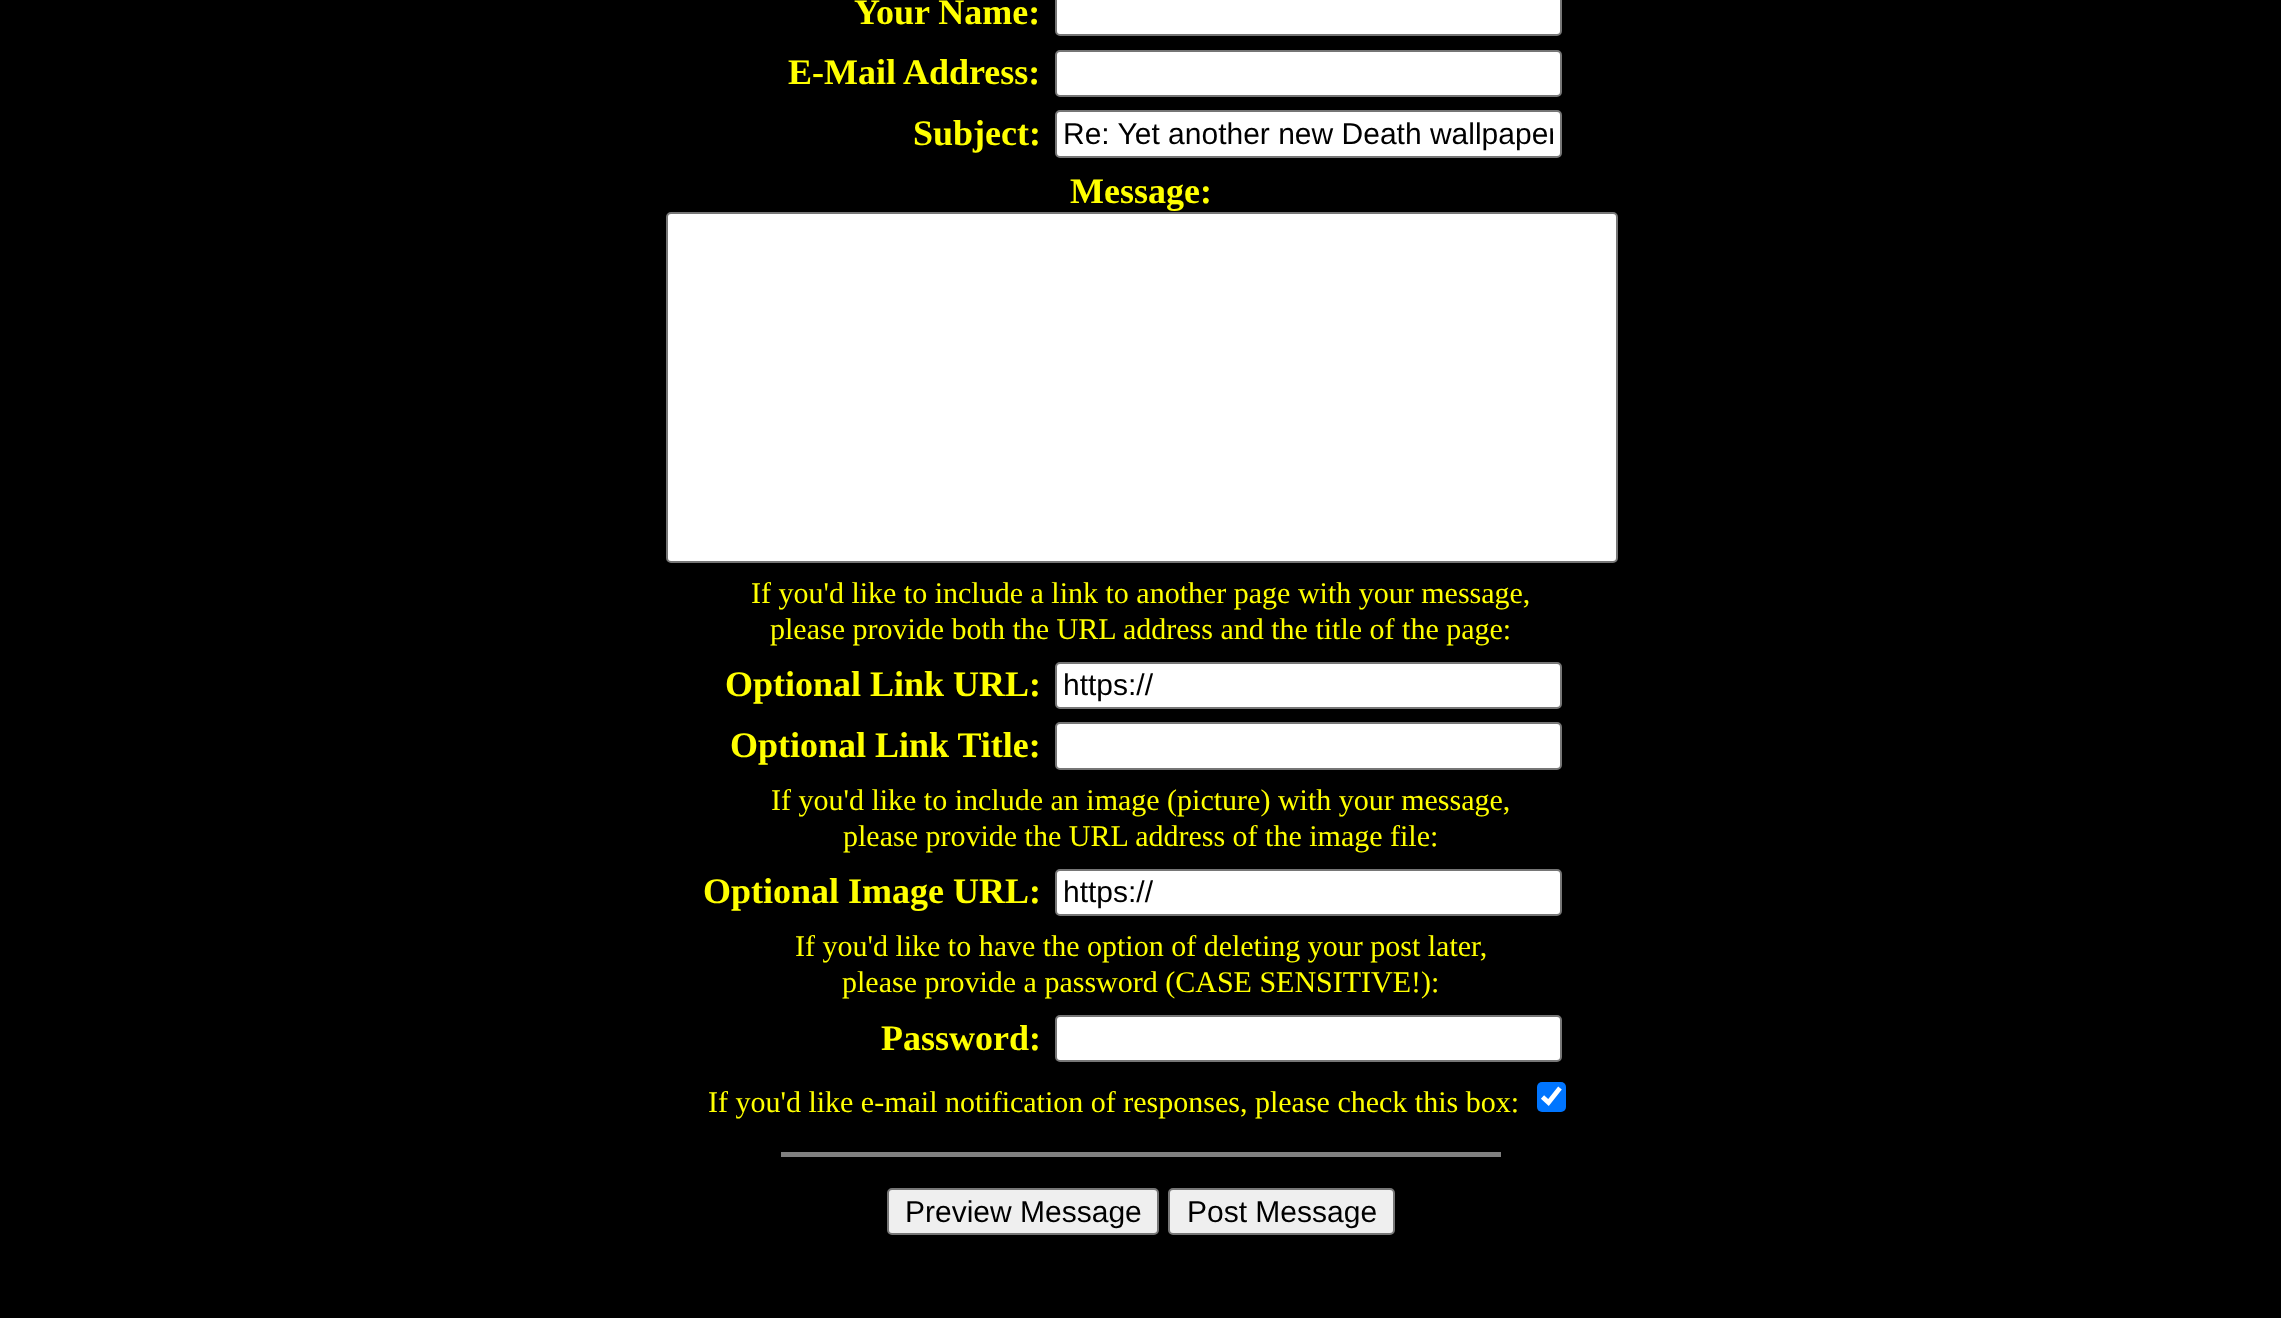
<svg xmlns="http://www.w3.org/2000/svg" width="2281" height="1318">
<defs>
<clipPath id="clip1"><rect x="1064" y="117" width="489" height="34"/></clipPath>
</defs>
<rect width="100%" height="100%" fill="#000"/>
<text x="854" y="24" style="font-family:Liberation Serif;font-size:36px;font-weight:bold;fill:#ff0">Your Name:</text>
<rect x="1056" y="-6" width="505" height="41" rx="4" fill="#fff" stroke="#767676" stroke-width="2"/>
<text x="788" y="84" style="font-family:Liberation Serif;font-size:36px;font-weight:bold;fill:#ff0">E-Mail Address:</text>
<rect x="1056" y="51" width="505" height="45" rx="4" fill="#fff" stroke="#767676" stroke-width="2"/>
<text x="913" y="145" style="font-family:Liberation Serif;font-size:36px;font-weight:bold;fill:#ff0">Subject:</text>
<rect x="1056" y="111" width="505" height="46" rx="4" fill="#fff" stroke="#767676" stroke-width="2"/>
<g clip-path="url(#clip1)">
<text x="1063" y="144" style="font-family:Liberation Sans;font-size:30px;fill:#000">Re: Yet another new Death wallpaper</text>
</g>
<text x="1070" y="203" style="font-family:Liberation Serif;font-size:36px;font-weight:bold;fill:#ff0">Message:</text>
<rect x="667" y="213" width="950" height="349" rx="4" fill="#fff" stroke="#767676" stroke-width="2"/>
<text x="751" y="603" style="font-family:Liberation Serif;font-size:30px;fill:#ff0">If you'd like to include a link to another page with your message,</text>
<text x="770" y="639" style="font-family:Liberation Serif;font-size:30px;fill:#ff0">please provide both the URL address and the title of the page:</text>
<text x="725" y="696" style="font-family:Liberation Serif;font-size:36px;font-weight:bold;fill:#ff0">Optional Link URL:</text>
<rect x="1056" y="663" width="505" height="45" rx="4" fill="#fff" stroke="#767676" stroke-width="2"/>
<text x="1063" y="695" style="font-family:Liberation Sans;font-size:30px;fill:#000">https://</text>
<text x="730" y="757" style="font-family:Liberation Serif;font-size:36px;font-weight:bold;fill:#ff0">Optional Link Title:</text>
<rect x="1056" y="723" width="505" height="46" rx="4" fill="#fff" stroke="#767676" stroke-width="2"/>
<text x="771" y="810" style="font-family:Liberation Serif;font-size:30px;fill:#ff0">If you'd like to include an image (picture) with your message,</text>
<text x="843" y="846" style="font-family:Liberation Serif;font-size:30px;fill:#ff0">please provide the URL address of the image file:</text>
<text x="703" y="903" style="font-family:Liberation Serif;font-size:36px;font-weight:bold;fill:#ff0">Optional Image URL:</text>
<rect x="1056" y="870" width="505" height="45" rx="4" fill="#fff" stroke="#767676" stroke-width="2"/>
<text x="1063" y="902" style="font-family:Liberation Sans;font-size:30px;fill:#000">https://</text>
<text x="795" y="956" style="font-family:Liberation Serif;font-size:30px;fill:#ff0">If you'd like to have the option of deleting your post later,</text>
<text x="842" y="992" style="font-family:Liberation Serif;font-size:30px;fill:#ff0">please provide a password (CASE SENSITIVE!):</text>
<text x="881" y="1050" style="font-family:Liberation Serif;font-size:36px;font-weight:bold;fill:#ff0">Password:</text>
<rect x="1056" y="1016" width="505" height="45" rx="4" fill="#fff" stroke="#767676" stroke-width="2"/>
<text x="708" y="1112" style="font-family:Liberation Serif;font-size:30px;fill:#ff0">If you'd like e-mail notification of responses, please check this box:</text>
<rect x="1537" y="1082" width="29" height="30" rx="5" fill="#0075ff"/>
<path d="M1542.5 1097l6 5.5l11.5-14.5" fill="none" stroke="#fff" stroke-width="4.7"/>
<rect x="781" y="1152" width="720" height="5" fill="#808080"/>
<rect x="888" y="1189" width="270" height="45" rx="4" fill="#efefef" stroke="#767676" stroke-width="2"/>
<text x="905" y="1222" style="font-family:Liberation Sans;font-size:30px;fill:#000">Preview Message</text>
<rect x="1169" y="1189" width="225" height="45" rx="4" fill="#efefef" stroke="#767676" stroke-width="2"/>
<text x="1187" y="1222" style="font-family:Liberation Sans;font-size:30px;fill:#000">Post Message</text>
</svg>
